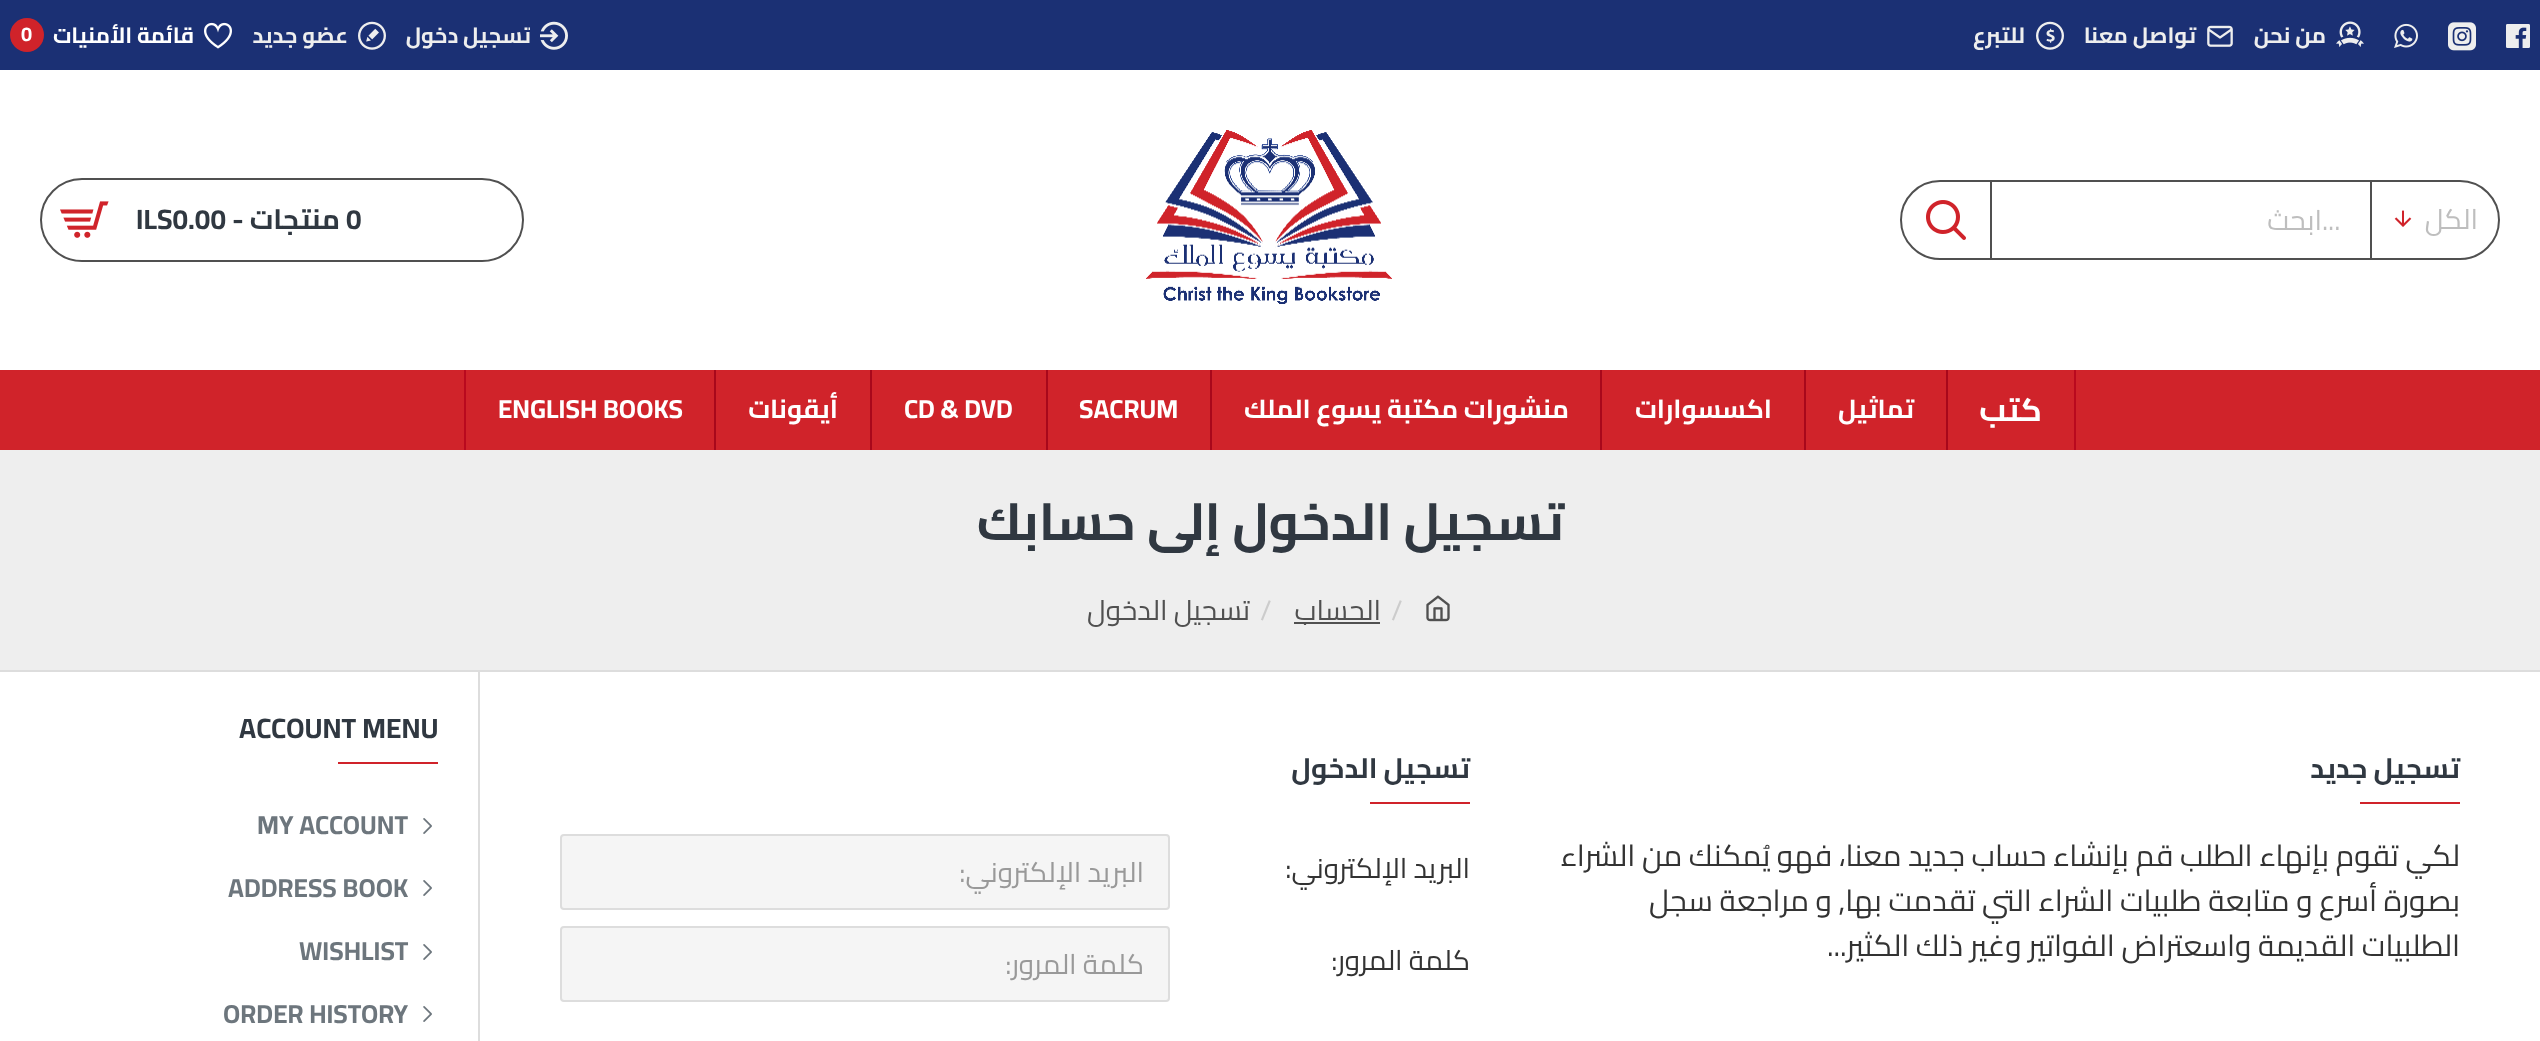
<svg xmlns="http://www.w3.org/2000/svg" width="2540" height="1041">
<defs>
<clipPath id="clip1"><rect x="406" y="18" width="124" height="34"/></clipPath>
</defs>
<rect width="100%" height="100%" fill="#fff"/>
<rect width="2540" height="70" fill="#1b3074"/>
<image x="2506" y="24" width="24" height="24" href="media/1.png"/>
<image x="2448" y="22" width="28" height="29" href="media/2.png"/>
<image x="2394" y="23" width="24" height="25" href="media/3.png"/>
<image x="2336" y="21" width="28" height="26" href="media/4.png"/>
<text x="2326" y="43" style="font-family:Cairo;font-size:22px;font-weight:bold;direction:rtl;fill:#eee">من نحن</text>
<image x="2207" y="25" width="26" height="22" href="media/5.png"/>
<text x="2196" y="43" style="font-family:Cairo;font-size:22px;font-weight:bold;direction:rtl;fill:#eee">تواصل معنا</text>
<image x="2036" y="21" width="28" height="29" href="media/6.png"/>
<text x="2025" y="43" style="font-family:Cairo;font-size:22px;font-weight:bold;direction:rtl;fill:#eee">للتبرع</text>
<image x="540" y="21" width="28" height="29" href="media/7.png"/>
<g clip-path="url(#clip1)">
<text x="531" y="43" style="font-family:Cairo;font-size:22px;font-weight:bold;direction:rtl;fill:#eee">تسجيل دخول</text>
</g>
<image x="358" y="21" width="28" height="29" href="media/8.png"/>
<text x="348" y="43" style="font-family:Cairo;font-size:22px;font-weight:bold;direction:rtl;fill:#eee">عضو جديد</text>
<image x="204" y="22" width="28" height="27" href="media/9.png"/>
<text x="194" y="43" style="font-family:Cairo;font-size:22px;font-weight:bold;direction:rtl;fill:#fff">قائمة الأمنيات</text>
<circle cx="27" cy="35" r="17" fill="#d0232a"/>
<text x="21" y="41" style="font-family:Cairo;font-size:20px;font-weight:bold;fill:#fff">0</text>
<rect x="1901" y="181" width="598" height="78" rx="39" fill="none" stroke="#505050" stroke-width="2"/>
<rect x="2370" y="182" width="2" height="76" fill="#505050"/>
<text x="2478" y="229" style="font-family:Cairo;font-size:28px;direction:rtl;fill:#bebebe">الكل</text>
<image x="2394" y="210" width="18" height="17" href="media/10.png"/>
<text x="2322" y="230" style="font-family:Cairo;font-size:28px;fill:#bebebe">...</text>
<text x="2322" y="230" style="font-family:Cairo;font-size:28px;direction:rtl;fill:#bebebe">ابحث</text>
<rect x="1990" y="182" width="2" height="76" fill="#505050"/>
<image x="1926" y="200" width="40" height="40" href="media/11.png"/>
<image x="1146" y="130" width="246" height="174" href="media/12.png"/>
<rect x="41" y="179" width="482" height="82" rx="41" fill="none" stroke="#505050" stroke-width="2"/>
<text x="346" y="229" style="font-family:Cairo;font-size:28px;font-weight:bold;fill:#303841">0</text>
<text x="340" y="229" style="font-family:Cairo;font-size:28px;font-weight:bold;direction:rtl;fill:#303841">منتجات -</text>
<text x="136" y="229" style="font-family:Cairo;font-size:28px;font-weight:bold;fill:#303841">ILS0.00</text>
<image x="60" y="201" width="49" height="37" href="media/13.png"/>
<rect y="370" width="2540" height="80" fill="#d0232a"/>
<rect x="2074" y="370" width="2" height="80" fill="#b9091e"/>
<rect x="464" y="370" width="2" height="80" fill="#b9091e"/>
<text x="2042" y="421" style="font-family:Cairo;font-size:32px;font-weight:bold;direction:rtl;fill:#fff">كتب</text>
<rect x="1946" y="370" width="2" height="80" fill="#a8081b"/>
<text x="1914" y="418" style="font-family:Cairo;font-size:26px;font-weight:bold;direction:rtl;fill:#fff">تماثيل</text>
<rect x="1804" y="370" width="2" height="80" fill="#a8081b"/>
<text x="1772" y="418" style="font-family:Cairo;font-size:26px;font-weight:bold;direction:rtl;fill:#fff">اكسسوارات</text>
<rect x="1600" y="370" width="2" height="80" fill="#a8081b"/>
<text x="1569" y="418" style="font-family:Cairo;font-size:26px;font-weight:bold;direction:rtl;fill:#fff">منشورات مكتبة يسوع الملك</text>
<rect x="1210" y="370" width="2" height="80" fill="#a8081b"/>
<text x="1079" y="418" style="font-family:Cairo;font-size:26px;font-weight:bold;fill:#fff">SACRUM</text>
<rect x="1046" y="370" width="2" height="80" fill="#a8081b"/>
<text x="904" y="418" style="font-family:Cairo;font-size:26px;font-weight:bold;fill:#fff">CD &amp; DVD</text>
<rect x="870" y="370" width="2" height="80" fill="#a8081b"/>
<text x="838" y="418" style="font-family:Cairo;font-size:26px;font-weight:bold;direction:rtl;fill:#fff">أيقونات</text>
<rect x="714" y="370" width="2" height="80" fill="#a8081b"/>
<text x="498" y="418" style="font-family:Cairo;font-size:26px;font-weight:bold;fill:#fff">ENGLISH BOOKS</text>
<rect y="450" width="2540" height="220" fill="#eee"/>
<text x="1564" y="540" style="font-family:Cairo;font-size:52px;font-weight:bold;direction:rtl;fill:#303841">تسجيل الدخول إلى حسابك</text>
<rect y="670" width="2540" height="2" fill="#ddd"/>
<image x="1426" y="595" width="24" height="27" href="media/14.png"/>
<text x="1391" y="620" style="font-family:Cairo;font-size:28px;fill:#ccc">/</text>
<rect x="1294" y="622" width="86" height="2" fill="#505050"/>
<text x="1381" y="620" style="font-family:Cairo;font-size:28px;direction:rtl;fill:#505050">الحساب</text>
<text x="1260" y="620" style="font-family:Cairo;font-size:28px;fill:#ccc">/</text>
<text x="1250" y="620" style="font-family:Cairo;font-size:28px;direction:rtl;fill:#505050">تسجيل الدخول</text>
<text x="2460" y="778" style="font-family:Cairo;font-size:28px;font-weight:bold;direction:rtl;fill:#303841">تسجيل جديد</text>
<rect x="2360" y="802" width="100" height="2" fill="#d0232a"/>
<text x="2460" y="866" style="font-family:Cairo;font-size:30px;direction:rtl;fill:#333">لكي تقوم بإنهاء الطلب قم بإنشاء حساب جديد معنا، فهو يُمكنك من الشراء</text>
<text x="2460" y="911" style="font-family:Cairo;font-size:30px;direction:rtl;fill:#333">بصورة أسرع و متابعة طلبيات الشراء التي تقدمت بها, و مراجعة سجل</text>
<text x="2460" y="956" style="font-family:Cairo;font-size:30px;direction:rtl;fill:#333">الطلبيات القديمة واسعتراض الفواتير وغير ذلك الكثير...</text>
<text x="1470" y="778" style="font-family:Cairo;font-size:28px;font-weight:bold;direction:rtl;fill:#303841">تسجيل الدخول</text>
<rect x="1370" y="802" width="100" height="2" fill="#d0232a"/>
<text x="1470" y="878" style="font-family:Cairo;font-size:28px;direction:rtl;fill:#333">البريد الإلكتروني:</text>
<rect x="561" y="835" width="608" height="74" rx="3" fill="#f5f5f5" stroke="#ddd" stroke-width="2"/>
<text x="1144" y="882" style="font-family:Cairo;font-size:28px;direction:rtl;fill:#999">البريد الإلكتروني:</text>
<text x="1470" y="970" style="font-family:Cairo;font-size:28px;direction:rtl;fill:#333">كلمة المرور:</text>
<rect x="561" y="927" width="608" height="74" rx="3" fill="#f5f5f5" stroke="#ddd" stroke-width="2"/>
<text x="1144" y="974" style="font-family:Cairo;font-size:28px;direction:rtl;fill:#999">كلمة المرور:</text>
<rect x="478" y="672" width="2" height="369" fill="#ddd"/>
<text x="239" y="738" style="font-family:Cairo;font-size:28px;font-weight:bold;fill:#303841">ACCOUNT MENU</text>
<rect x="338" y="762" width="100" height="2" fill="#d0232a"/>
<image x="423" y="818" width="9" height="16" href="media/15.png"/>
<text x="257" y="834" style="font-family:Cairo;font-size:26px;font-weight:bold;fill:#6d767d">MY ACCOUNT</text>
<image x="423" y="880" width="9" height="16" href="media/15.png"/>
<text x="228" y="897" style="font-family:Cairo;font-size:26px;font-weight:bold;fill:#6d767d">ADDRESS BOOK</text>
<image x="423" y="944" width="9" height="16" href="media/15.png"/>
<text x="299" y="960" style="font-family:Cairo;font-size:26px;font-weight:bold;fill:#6d767d">WISHLIST</text>
<image x="423" y="1006" width="9" height="16" href="media/15.png"/>
<text x="223" y="1023" style="font-family:Cairo;font-size:26px;font-weight:bold;fill:#6d767d">ORDER HISTORY</text>
</svg>
